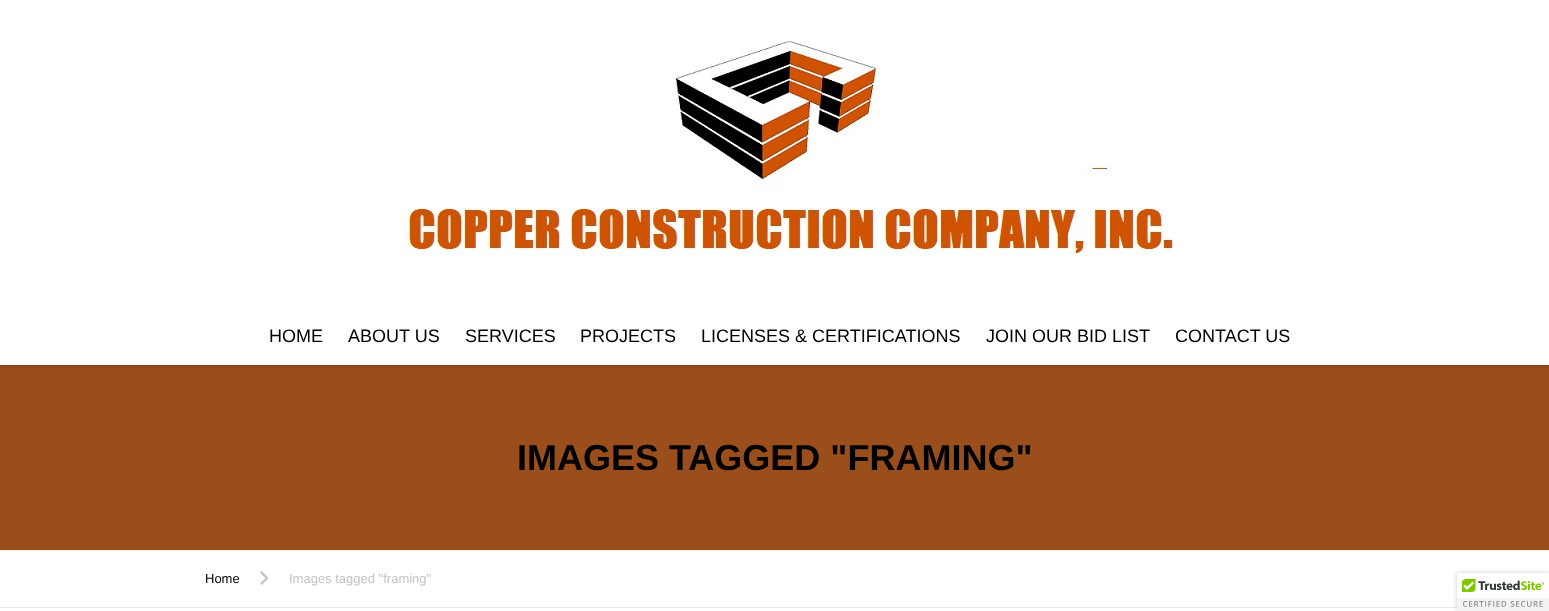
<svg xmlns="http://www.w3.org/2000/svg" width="1549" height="611">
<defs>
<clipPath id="clip1"><rect x="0" y="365" width="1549" height="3"/></clipPath>
</defs>
<rect width="100%" height="100%" fill="#fff"/>
<rect y="365" width="1549" height="185" fill="#994e1c"/>
<g clip-path="url(#clip1)">
<rect x="-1" width="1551" height="367" fill="#0000001f" filter="blur(1px)"/>
</g>
<image x="397" y="40" width="778" height="215" href="media/1.png"/>
<text x="269" y="342" style="font-family:Liberation Sans;font-size:18px;fill:#000">HOME</text>
<text x="348" y="342" style="font-family:Liberation Sans;font-size:18px;fill:#000">ABOUT US</text>
<text x="465" y="342" style="font-family:Liberation Sans;font-size:18px;fill:#000">SERVICES</text>
<text x="580" y="342" style="font-family:Liberation Sans;font-size:18px;fill:#000">PROJECTS</text>
<text x="701" y="342" style="font-family:Liberation Sans;font-size:18px;fill:#000">LICENSES &amp; CERTIFICATIONS</text>
<text x="986" y="342" style="font-family:Liberation Sans;font-size:18px;fill:#000">JOIN OUR BID LIST</text>
<text x="1175" y="342" style="font-family:Liberation Sans;font-size:18px;fill:#000">CONTACT US</text>
<rect y="550" width="1549" height="1" fill="#eee"/>
<text x="517" y="470" style="font-family:Liberation Sans;font-size:36px;font-weight:bold;fill:#000">IMAGES TAGGED "FRAMING"</text>
<rect y="607" width="1457" height="1" fill="#e7e7e7"/>
<text x="205" y="583" style="font-family:Liberation Sans;font-size:13px;fill:#000">Home</text>
<image x="260" y="571" width="8" height="14" href="media/2.png"/>
<text x="289" y="583" style="font-family:Liberation Sans;font-size:13px;fill:#c3c3c3">Images tagged "framing"</text>
<rect x="1457" y="573" width="92" height="38" rx="2" fill="#00000033" filter="blur(2.5px)"/>
<path d="M1459 573h90v38h-92v-36c0-1 1-2 2-2z" fill="#fff"/>
<image x="1457" y="573" width="92" height="38" href="media/3.png"/>
</svg>
